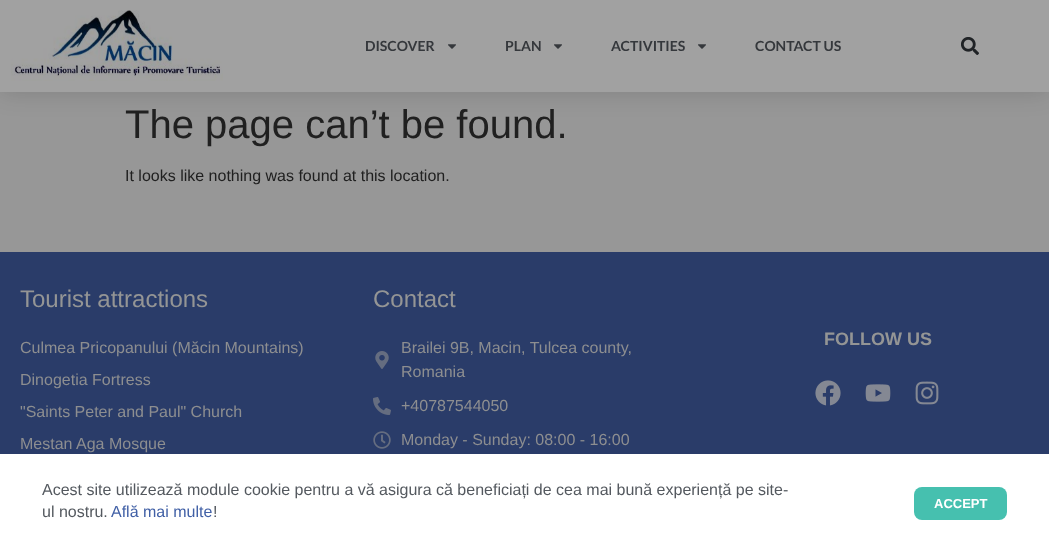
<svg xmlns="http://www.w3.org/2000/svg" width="1049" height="553">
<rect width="100%" height="100%" fill="#979797"/>
<rect width="1049" height="92" fill="#00000026" filter="blur(12px)"/>
<rect width="1049" height="92" fill="#a1a1a1"/>
<image x="11" y="10" width="212" height="71" href="media/1.png"/>
<text x="365" y="51" style="font-family:Lato;font-size:14px;font-weight:bold;fill:#35383c">DISCOVER</text>
<image x="448" y="44" width="8" height="5" href="media/2.png"/>
<text x="505" y="51" style="font-family:Lato;font-size:14px;font-weight:bold;fill:#35383c">PLAN</text>
<image x="554" y="44" width="8" height="5" href="media/2.png"/>
<text x="611" y="51" style="font-family:Lato;font-size:14px;font-weight:bold;fill:#35383c">ACTIVITIES</text>
<image x="698" y="44" width="8" height="5" href="media/2.png"/>
<text x="755" y="51" style="font-family:Lato;font-size:14px;font-weight:bold;fill:#35383c">CONTACT US</text>
<image x="961" y="37" width="18" height="18" href="media/3.png"/>
<text x="125" y="138" style="font-family:Liberation Sans;font-size:40px;fill:#202020">The page can’t be found.</text>
<text x="125" y="181" style="font-family:Liberation Sans;font-size:16px;fill:#202020">It looks like nothing was found at this location.</text>
<rect y="252" width="1049" height="202" fill="#2a3c69"/>
<text x="20" y="307" style="font-family:Liberation Sans;font-size:24px;fill:#949595">Tourist attractions</text>
<text x="20" y="353" style="font-family:Liberation Sans;font-size:16px;fill:#8d8e90">Culmea Pricopanului (Măcin Mountains)</text>
<text x="20" y="385" style="font-family:Liberation Sans;font-size:16px;fill:#8d8e90">Dinogetia Fortress</text>
<text x="20" y="417" style="font-family:Liberation Sans;font-size:16px;fill:#8d8e90">"Saints Peter and Paul" Church</text>
<text x="20" y="449" style="font-family:Liberation Sans;font-size:16px;fill:#8d8e90">Mestan Aga Mosque</text>
<text x="373" y="307" style="font-family:Liberation Sans;font-size:24px;fill:#949595">Contact</text>
<image x="375" y="351" width="14" height="18" href="media/4.png"/>
<text x="401" y="353" style="font-family:Liberation Sans;font-size:16px;fill:#8d8e90">Brailei 9B, Macin, Tulcea county,</text>
<text x="401" y="377" style="font-family:Liberation Sans;font-size:16px;fill:#8d8e90">Romania</text>
<image x="373" y="397" width="18" height="18" href="media/5.png"/>
<text x="401" y="411" style="font-family:Liberation Sans;font-size:16px;fill:#8d8e90">+40787544050</text>
<image x="373" y="431" width="18" height="18" href="media/6.png"/>
<text x="401" y="445" style="font-family:Liberation Sans;font-size:16px;fill:#8d8e90">Monday - Sunday: 08:00 - 16:00</text>
<text x="824" y="345" style="font-family:Liberation Sans;font-size:18px;font-weight:bold;fill:#949595">FOLLOW US</text>
<image x="815" y="380" width="26" height="26" href="media/7.png"/>
<image x="865" y="384" width="26" height="18" href="media/8.png"/>
<image x="915" y="381" width="24" height="24" href="media/9.png"/>
<rect y="454" width="1049" height="99" fill="#fff"/>
<text x="42" y="495" style="font-family:Liberation Sans;font-size:16px;fill:#54595f">Acest site utilizează module cookie pentru a vă asigura că beneficiați de cea mai bună experiență pe site-</text>
<text x="42" y="517" style="font-family:Liberation Sans;font-size:16px;fill:#54595f">ul nostru.</text>
<text x="111" y="517" style="font-family:Liberation Sans;font-size:16px;fill:#4160a6">Află mai multe</text>
<text x="213" y="517" style="font-family:Liberation Sans;font-size:16px;fill:#54595f">!</text>
<rect x="914" y="487" width="93" height="33" rx="8" fill="#46c0af"/>
<text x="934" y="508" style="font-family:Liberation Sans;font-size:13px;font-weight:bold;fill:#fff">ACCEPT</text>
</svg>
